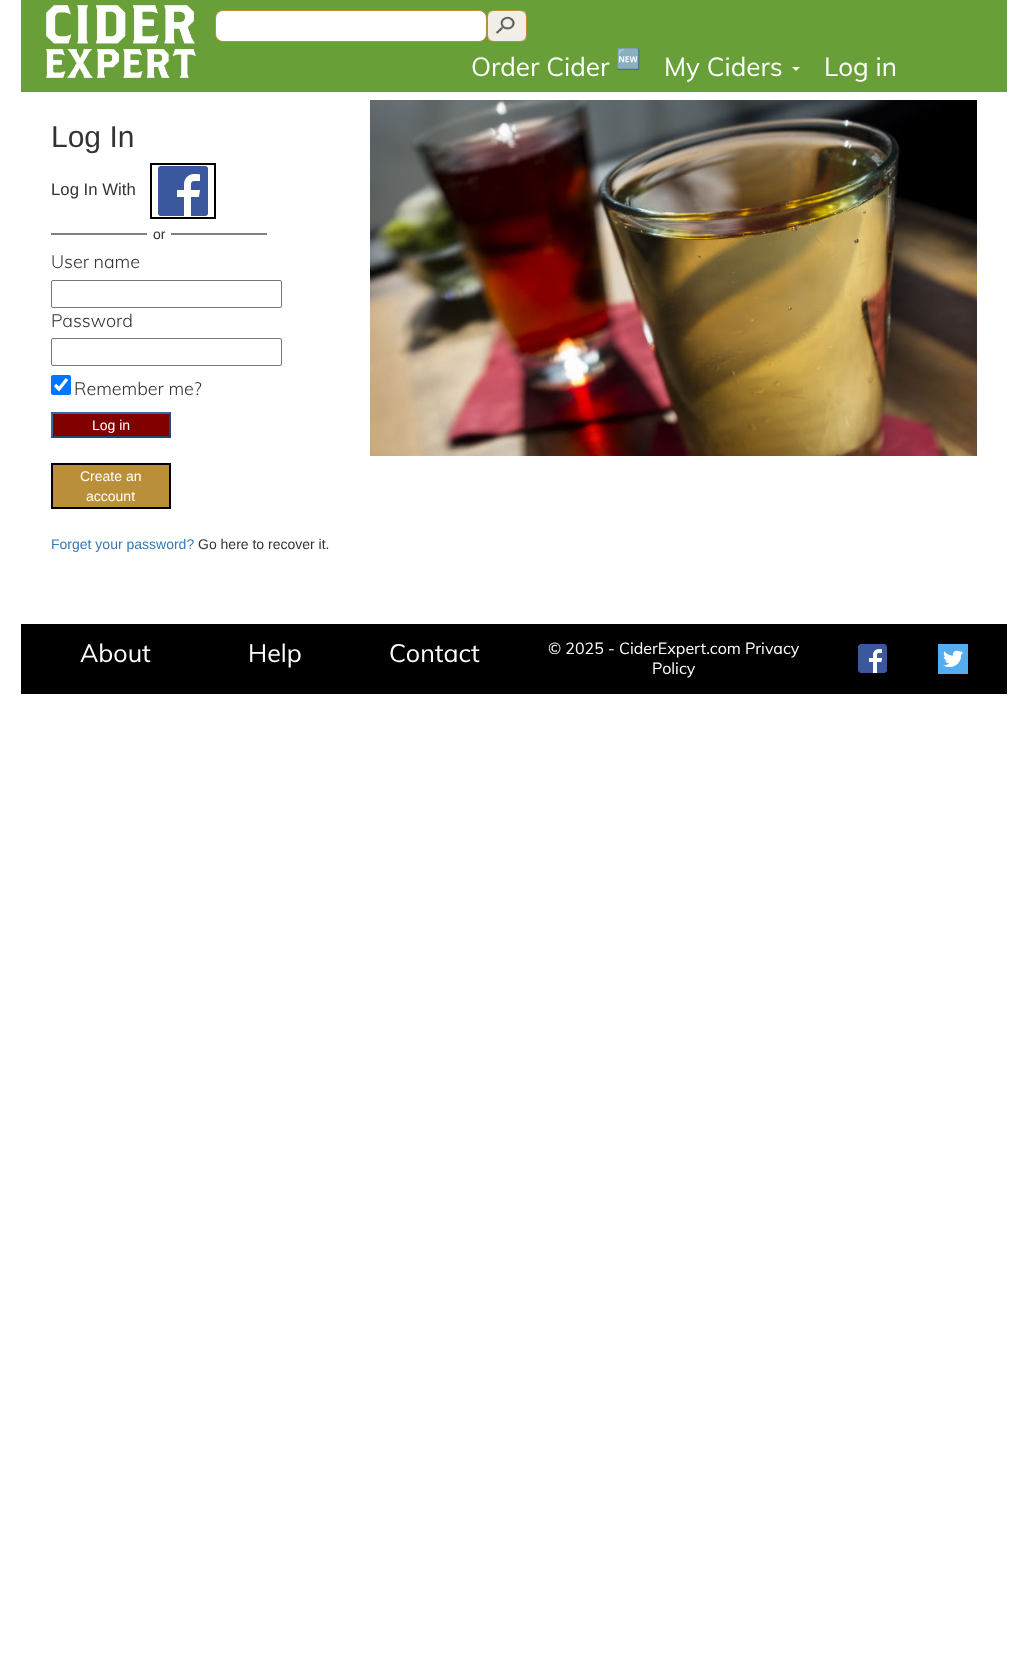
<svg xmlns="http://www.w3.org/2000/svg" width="1028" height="1657">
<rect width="100%" height="100%" fill="#fff"/>
<rect x="21" width="986" height="92" fill="#689f38"/>
<image x="46" y="5" width="150" height="73" href="media/1.png"/>
<rect x="215.5" y="10.5" width="271" height="31" rx="7.5" fill="#fff" stroke="#ba8f39"/>
<image x="488" y="11" width="38" height="30" href="media/2.png"/>
<rect x="487.5" y="10.5" width="39" height="31" rx="6.5" fill="none" stroke="#ba8f39"/>
<text x="471" y="76" style="font-family:Muli;font-size:26px;fill:#fff">Order Cider</text>
<text x="616" y="66" style="font-family:Noto Color Emoji;font-size:20px;fill:#fff">🆕</text>
<text x="664" y="76" style="font-family:Muli;font-size:26px;fill:#fff">My Ciders</text>
<path d="M792 67h8l-4 4z" fill="#fff"/>
<text x="824" y="76" style="font-family:Muli;font-size:26px;fill:#fff">Log in</text>
<text x="51" y="147" style="font-family:Liberation Sans;font-size:30px;fill:#333">Log In</text>
<text x="51" y="195" style="font-family:Liberation Sans;font-size:16.75px;fill:#333">Log In With</text>
<rect x="151" y="164" width="64" height="54" fill="none" stroke="#000" stroke-width="2"/>
<image x="158" y="166" width="50" height="50" href="media/3.png"/>
<rect x="51" y="233" width="96" height="2" fill="#808080"/>
<text x="153" y="239" style="font-family:Liberation Sans;font-size:14px;fill:#333">or</text>
<rect x="171" y="233" width="96" height="2" fill="#808080"/>
<text x="51" y="268" style="font-family:Muli;font-size:18px;font-weight:300;fill:#333">User name</text>
<rect x="51.5" y="280.5" width="230" height="27" rx="1.5" fill="none" stroke="#767676"/>
<text x="51" y="327" style="font-family:Muli;font-size:18px;font-weight:300;fill:#333">Password</text>
<rect x="51.5" y="338.5" width="230" height="27" rx="1.5" fill="none" stroke="#767676"/>
<rect x="51" y="375" width="20" height="20" rx="2" fill="#0075ff"/>
<path d="M55 385l4 4l8-10" fill="none" stroke="#fff" stroke-width="3.2"/>
<text x="74" y="395" style="font-family:Muli;font-size:18px;font-weight:300;fill:#333">Remember me?</text>
<rect x="51" y="412" width="120" height="26" fill="#800000"/>
<path d="M51 412h120l-2 2h-116z" fill="#2e6da4"/>
<path d="M171 412v26l-2-2v-22z" fill="#1f496d"/>
<path d="M171 438h-120l2-2h116z" fill="#1f496d"/>
<path d="M51 438v-26l2 2v22z" fill="#2e6da4"/>
<text x="92" y="430" style="font-family:Liberation Sans;font-size:14px;fill:#fff">Log in</text>
<rect x="52" y="464" width="118" height="44" fill="#ba8f39" stroke="#000" stroke-width="2"/>
<text x="80" y="481" style="font-family:Liberation Sans;font-size:14px;fill:#fff">Create an</text>
<text x="86" y="501" style="font-family:Liberation Sans;font-size:14px;fill:#fff">account</text>
<text x="51" y="549" style="font-family:Liberation Sans;font-size:14px;fill:#337ab7">Forget your password?</text>
<text x="198" y="549" style="font-family:Liberation Sans;font-size:14px;fill:#333">Go here to recover it.</text>
<image x="370" y="100" width="607" height="356" href="media/4.png"/>
<rect x="21" y="624" width="986" height="70" fill="#000"/>
<text x="80" y="662" style="font-family:Muli;font-size:25px;fill:#fff">About</text>
<text x="248" y="662" style="font-family:Muli;font-size:25px;fill:#fff">Help</text>
<text x="389" y="662" style="font-family:Muli;font-size:25px;fill:#fff">Contact</text>
<text x="548" y="654" style="font-family:Muli;font-size:16px;fill:#fff">© 2025 - CiderExpert.com Privacy</text>
<text x="652" y="674" style="font-family:Muli;font-size:16px;fill:#fff">Policy</text>
<image x="858" y="644" width="29" height="29" href="media/5.png"/>
<rect x="938" y="644" width="30" height="30" fill="#55acee"/>
<image x="943" y="650" width="21" height="17" href="media/6.png"/>
</svg>
